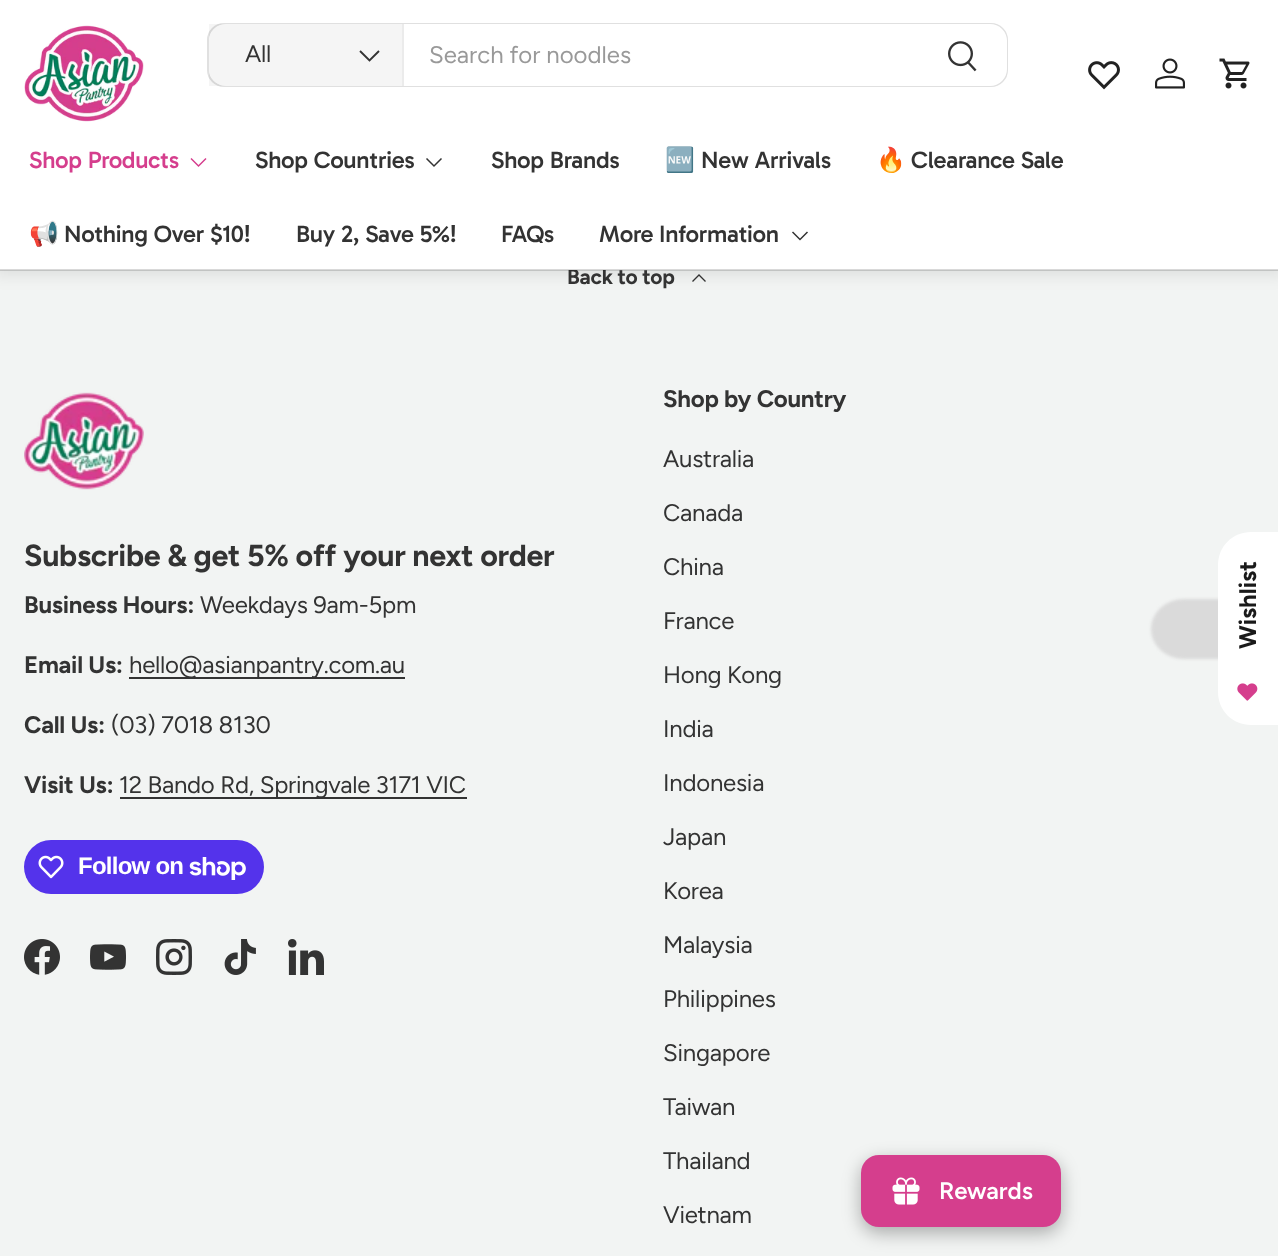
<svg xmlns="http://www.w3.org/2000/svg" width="1278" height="1256">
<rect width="100%" height="100%" fill="#f2f4f3"/>
<path d="M692.5 281.5l6.5-6.5l6.5 6.5" fill="none" stroke="#333" stroke-width="1.3"/>
<rect x="-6" y="-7" width="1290" height="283" fill="#00000014" filter="blur(7.5px)"/>
<text x="567" y="284" style="font-family:Figtree;font-size:21px;font-weight:bold;letter-spacing:-0.25px;fill:#333">Back to top</text>
<rect width="1278" height="270" fill="#fff"/>
<image x="24" y="25" width="120" height="97" href="media/1.png"/>
<rect x="208" y="24" width="799" height="62" rx="16" fill="none" stroke="#e0e0e0" stroke-width="2"/>
<rect x="209" y="24" width="798" height="62" rx="17" fill="#fff"/>
<rect x="209" y="24" width="193" height="62" fill="#3333330d"/>
<rect x="402" y="24" width="2" height="62" fill="#ebebeb"/>
<text x="245" y="62" style="font-family:Figtree;font-size:24px;letter-spacing:-0.25px;fill:#333">All</text>
<path d="M379 51l-9.5 9.5l-9.5-9.5" fill="none" stroke="#333" stroke-width="1.9"/>
<text x="429" y="63" style="font-family:Figtree;font-size:24px;fill:#999">Search for noodles</text>
<image x="948" y="41" width="29" height="31" href="media/2.png"/>
<image x="1088" y="61" width="32" height="29" href="media/3.png"/>
<image x="1155" y="58" width="30" height="31" href="media/4.png"/>
<image x="1219" y="58" width="31" height="31" href="media/5.png"/>
<text x="29" y="168" style="font-family:Gabarito;font-size:24px;font-weight:500;letter-spacing:-0.25px;fill:#d53e8d">Shop Products</text>
<path d="M206 158.5l-7.5 7.5l-7.5-7.5" fill="none" stroke="#d53e8d" stroke-width="1.5"/>
<text x="255" y="168" style="font-family:Gabarito;font-size:24px;font-weight:500;letter-spacing:-0.25px;fill:#333">Shop Countries</text>
<path d="M441.5 158.5l-7.5 7.5l-7.5-7.5" fill="none" stroke="#333" stroke-width="1.5"/>
<text x="491" y="168" style="font-family:Gabarito;font-size:24px;font-weight:500;letter-spacing:-0.25px;fill:#333">Shop Brands</text>
<text x="665" y="168" style="font-family:Noto Color Emoji;font-size:24px;letter-spacing:-0.25px;fill:#333">🆕</text>
<text x="701" y="168" style="font-family:Gabarito;font-size:24px;font-weight:500;letter-spacing:-0.25px;fill:#333">New Arrivals</text>
<text x="876" y="168" style="font-family:Noto Color Emoji;font-size:24px;letter-spacing:-0.25px;fill:#333">🔥</text>
<text x="911" y="168" style="font-family:Gabarito;font-size:24px;font-weight:500;letter-spacing:-0.25px;fill:#333">Clearance Sale</text>
<text x="29" y="242" style="font-family:Noto Color Emoji;font-size:24px;letter-spacing:-0.25px;fill:#333">📢</text>
<text x="64" y="242" style="font-family:Gabarito;font-size:24px;font-weight:500;letter-spacing:-0.25px;fill:#333">Nothing Over $10!</text>
<text x="296" y="242" style="font-family:Gabarito;font-size:24px;font-weight:500;letter-spacing:-0.25px;fill:#333">Buy 2, Save 5%!</text>
<text x="501" y="242" style="font-family:Gabarito;font-size:24px;font-weight:500;letter-spacing:-0.25px;fill:#333">FAQs</text>
<text x="599" y="242" style="font-family:Gabarito;font-size:24px;font-weight:500;letter-spacing:-0.25px;fill:#333">More Information</text>
<path d="M807.5 232l-7.5 7.5l-7.5-7.5" fill="none" stroke="#333" stroke-width="1.5"/>
<rect y="269" width="1278" height="2" fill="#00000026"/>
<image x="24" y="392" width="120" height="98" href="media/6.png"/>
<text x="24" y="566" style="font-family:Figtree;font-size:30.4px;font-weight:bold;letter-spacing:-0.3px;fill:#333">Subscribe &amp; get 5% off your next order</text>
<text x="24" y="613" style="font-family:Figtree;font-size:24px;font-weight:bold;letter-spacing:-0.25px;fill:#333">Business Hours:</text>
<text x="200" y="613" style="font-family:Figtree;font-size:24px;letter-spacing:-0.25px;fill:#333">Weekdays 9am-5pm</text>
<text x="24" y="673" style="font-family:Figtree;font-size:24px;font-weight:bold;letter-spacing:-0.25px;fill:#333">Email Us:</text>
<rect x="129" y="677" width="276" height="2" fill="#333"/>
<text x="129" y="673" style="font-family:Figtree;font-size:24px;letter-spacing:-0.25px;fill:#333">hello@asianpantry.com.au</text>
<text x="24" y="733" style="font-family:Figtree;font-size:24px;font-weight:bold;letter-spacing:-0.25px;fill:#333">Call Us:</text>
<text x="111" y="733" style="font-family:Figtree;font-size:24px;letter-spacing:-0.25px;fill:#333">(03) 7018 8130</text>
<text x="24" y="793" style="font-family:Figtree;font-size:24px;font-weight:bold;letter-spacing:-0.25px;fill:#333">Visit Us:</text>
<rect x="120" y="797" width="347" height="2" fill="#333"/>
<text x="119" y="793" style="font-family:Figtree;font-size:24px;letter-spacing:-0.25px;fill:#333">12 Bando Rd, Springvale 3171 VIC</text>
<rect x="24" y="840" width="240" height="54" rx="27" fill="#5433eb"/>
<image x="38" y="855" width="26" height="24" href="media/7.png"/>
<text x="78" y="874" style="font-family:Liberation Sans;font-size:24px;font-weight:bold;letter-spacing:-0.75px;fill:#fff">Follow on</text>
<image x="189" y="857" width="57" height="23" href="media/8.png"/>
<image x="24" y="939" width="36" height="36" href="media/9.png"/>
<image x="90" y="944" width="36" height="26" href="media/10.png"/>
<image x="156" y="939" width="36" height="36" href="media/11.png"/>
<image x="224" y="939" width="32" height="36" href="media/12.png"/>
<image x="288" y="939" width="36" height="36" href="media/13.png"/>
<text x="663" y="407" style="font-family:Figtree;font-size:24px;font-weight:bold;letter-spacing:-0.25px;fill:#333">Shop by Country</text>
<text x="663" y="467" style="font-family:Figtree;font-size:24px;letter-spacing:-0.25px;fill:#333">Australia</text>
<text x="663" y="521" style="font-family:Figtree;font-size:24px;letter-spacing:-0.25px;fill:#333">Canada</text>
<text x="663" y="575" style="font-family:Figtree;font-size:24px;letter-spacing:-0.25px;fill:#333">China</text>
<text x="663" y="629" style="font-family:Figtree;font-size:24px;letter-spacing:-0.25px;fill:#333">France</text>
<text x="663" y="683" style="font-family:Figtree;font-size:24px;letter-spacing:-0.25px;fill:#333">Hong Kong</text>
<text x="663" y="737" style="font-family:Figtree;font-size:24px;letter-spacing:-0.25px;fill:#333">India</text>
<text x="663" y="791" style="font-family:Figtree;font-size:24px;letter-spacing:-0.25px;fill:#333">Indonesia</text>
<text x="663" y="845" style="font-family:Figtree;font-size:24px;letter-spacing:-0.25px;fill:#333">Japan</text>
<text x="663" y="899" style="font-family:Figtree;font-size:24px;letter-spacing:-0.25px;fill:#333">Korea</text>
<text x="663" y="953" style="font-family:Figtree;font-size:24px;letter-spacing:-0.25px;fill:#333">Malaysia</text>
<text x="663" y="1007" style="font-family:Figtree;font-size:24px;letter-spacing:-0.25px;fill:#333">Philippines</text>
<text x="663" y="1061" style="font-family:Figtree;font-size:24px;letter-spacing:-0.25px;fill:#333">Singapore</text>
<text x="663" y="1115" style="font-family:Figtree;font-size:24px;letter-spacing:-0.25px;fill:#333">Taiwan</text>
<text x="663" y="1169" style="font-family:Figtree;font-size:24px;letter-spacing:-0.25px;fill:#333">Thailand</text>
<text x="663" y="1223" style="font-family:Figtree;font-size:24px;letter-spacing:-0.25px;fill:#333">Vietnam</text>
<rect x="1151" y="599" width="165" height="60" rx="33" fill="#dadada" filter="blur(1.5px)"/>
<path d="M1218 692v-127c0-19 15-33 33-33h27v193h-27c-18 0-33-14-33-33z" fill="#fff"/>
<text x="1256" y="649" transform="rotate(-90 1256 649)" style="font-family:Figtree;font-size:24px;font-weight:bold;fill:#1a1a1a">Wishlist</text>
<image x="1237" y="683" width="21" height="18" href="media/14.png"/>
<rect x="861" y="1161" width="200" height="72" rx="18" fill="#0000004d" filter="blur(9px)"/>
<rect x="861" y="1155" width="200" height="72" rx="18" fill="#d53e8d"/>
<image x="892" y="1177" width="28" height="28" href="media/15.png"/>
<text x="939" y="1199" style="font-family:Figtree;font-size:24px;font-weight:600;fill:#fff">Rewards</text>
</svg>
